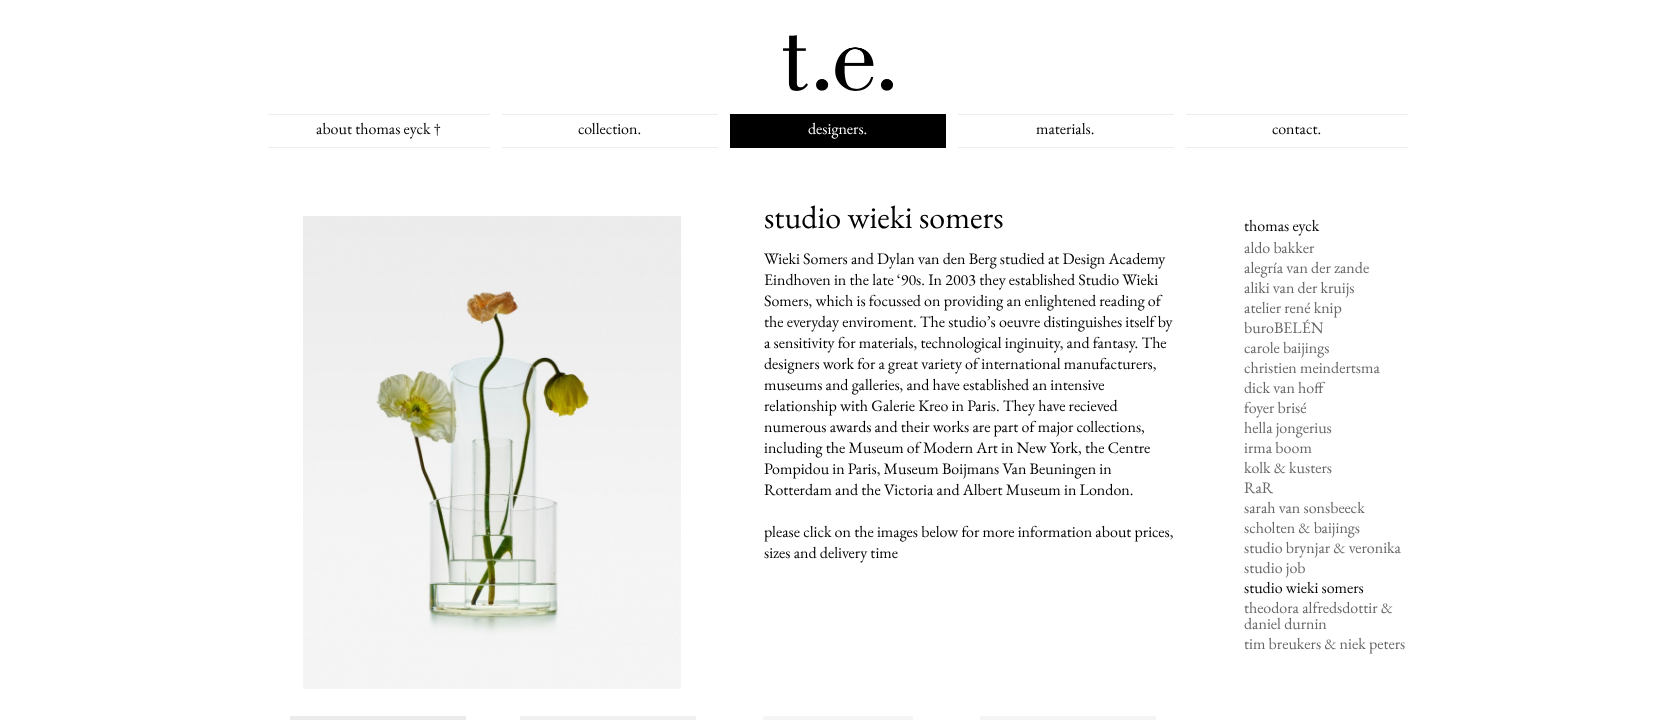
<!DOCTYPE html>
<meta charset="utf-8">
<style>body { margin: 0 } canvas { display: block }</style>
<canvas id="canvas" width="1675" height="720"></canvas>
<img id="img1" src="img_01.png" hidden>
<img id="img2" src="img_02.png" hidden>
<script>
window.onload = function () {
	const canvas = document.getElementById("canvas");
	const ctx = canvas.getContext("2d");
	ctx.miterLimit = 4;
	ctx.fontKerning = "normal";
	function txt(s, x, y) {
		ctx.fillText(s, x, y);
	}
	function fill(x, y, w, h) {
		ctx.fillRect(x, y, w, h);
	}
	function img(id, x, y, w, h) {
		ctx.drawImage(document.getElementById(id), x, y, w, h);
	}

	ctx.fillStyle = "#FFFFFF";
	fill(0, 0, 1675, 720);
	img("img1", 783, 35, 110, 56);
	ctx.fillStyle = "#EEEEEE";
	fill(268, 114, 222, 1);
	fill(268, 147, 222, 1);
	fill(502, 114, 216, 1);
	fill(502, 147, 216, 1);
	ctx.fillStyle = "#000000";
	fill(730, 114, 216, 34);
	ctx.fillStyle = "#EEEEEE";
	fill(958, 114, 216, 1);
	fill(958, 147, 216, 1);
	fill(1186, 114, 222, 1);
	fill(1186, 147, 222, 1);
	img("img2", 303, 216, 378, 473);
	ctx.fillStyle = "#EBEBEB";
	fill(290, 716, 176, 4);
	ctx.fillStyle = "#F0F0F0";
	fill(520, 716, 176, 4);
	ctx.fillStyle = "#F5F5F5";
	fill(763, 716, 150, 4);
	fill(980, 716, 176, 4);
	ctx.font = "16px EB Garamond";
	ctx.fillStyle = "#000000";
	txt("about thomas eyck †", 316, 134);
	txt("collection.", 578, 134);
	ctx.fillStyle = "#FFFFFF";
	txt("designers.", 808, 134);
	ctx.fillStyle = "#000000";
	txt("materials.", 1036, 134);
	txt("contact.", 1272, 134);
	ctx.font = "32px EB Garamond";
	txt("studio wieki somers", 764, 228);
	ctx.font = "16px EB Garamond";
	txt("Wieki Somers and Dylan van den Berg studied at Design Academy", 764, 264);
	txt("Eindhoven in the late ‘90s. In 2003 they established Studio Wieki", 764, 285);
	txt("Somers, which is focussed on providing an enlightened reading of", 764, 306);
	txt("the everyday enviroment. The studio’s oeuvre distinguishes itself by", 764, 327);
	txt("a sensitivity for materials, technological inginuity, and fantasy. The", 764, 348);
	txt("designers work for a great variety of international manufacturers,", 764, 369);
	txt("museums and galleries, and have established an intensive", 764, 390);
	txt("relationship with Galerie Kreo in Paris. They have recieved", 764, 411);
	txt("numerous awards and their works are part of major collections,", 764, 432);
	txt("including the Museum of Modern Art in New York, the Centre", 764, 453);
	txt("Pompidou in Paris, Museum Boijmans Van Beuningen in", 764, 474);
	txt("Rotterdam and the Victoria and Albert Museum in London.", 764, 495);
	txt("please click on the images below for more information about prices,", 764, 537);
	txt("sizes and delivery time", 764, 558);
	txt("thomas eyck", 1244, 231);
	ctx.fillStyle = "#666666";
	txt("aldo bakker", 1244, 253);
	txt("alegría van der zande", 1244, 273);
	txt("aliki van der kruijs", 1244, 293);
	txt("atelier rené knip", 1244, 313);
	txt("buroBELÉN", 1244, 333);
	txt("carole baijings", 1244, 353);
	txt("christien meindertsma", 1244, 373);
	txt("dick van hoff", 1244, 393);
	txt("foyer brisé", 1244, 413);
	txt("hella jongerius", 1244, 433);
	txt("irma boom", 1244, 453);
	txt("kolk & kusters", 1244, 473);
	txt("RaR", 1244, 493);
	txt("sarah van sonsbeeck", 1244, 513);
	txt("scholten & baijings", 1244, 533);
	txt("studio brynjar & veronika", 1244, 553);
	txt("studio job", 1244, 573);
	ctx.fillStyle = "#000000";
	txt("studio wieki somers", 1244, 593);
	ctx.fillStyle = "#666666";
	txt("theodora alfredsdottir &", 1244, 613);
	txt("daniel durnin", 1244, 629);
	txt("tim breukers & niek peters", 1244, 649);
};
</script>
